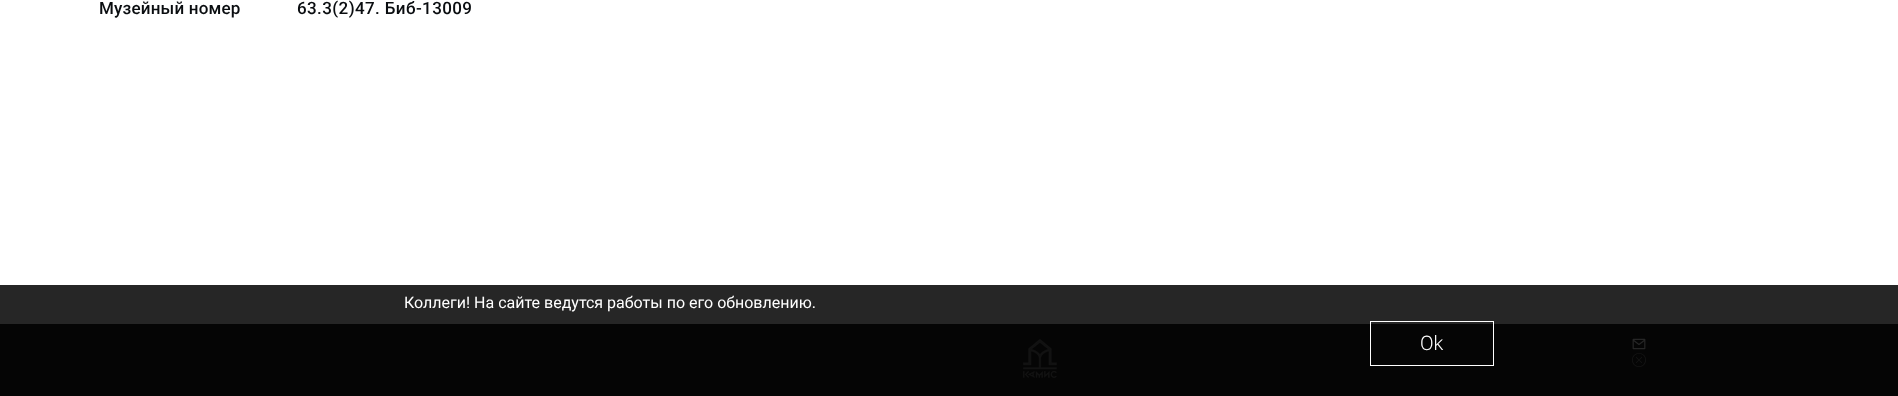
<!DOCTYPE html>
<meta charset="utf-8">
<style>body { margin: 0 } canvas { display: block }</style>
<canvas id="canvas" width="1898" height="396"></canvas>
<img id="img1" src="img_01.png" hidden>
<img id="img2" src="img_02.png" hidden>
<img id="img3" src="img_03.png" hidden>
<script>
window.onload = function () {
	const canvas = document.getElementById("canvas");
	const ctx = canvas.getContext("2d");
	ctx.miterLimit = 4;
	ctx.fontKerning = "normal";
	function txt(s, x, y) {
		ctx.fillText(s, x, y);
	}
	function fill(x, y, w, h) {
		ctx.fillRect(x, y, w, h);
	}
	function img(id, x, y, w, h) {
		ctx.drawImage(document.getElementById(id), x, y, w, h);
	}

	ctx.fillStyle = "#FFFFFF";
	fill(0, 0, 1898, 396);
	ctx.fillStyle = "#262626";
	fill(0, 285, 1898, 39);
	ctx.fillStyle = "#050505";
	fill(0, 324, 1898, 72);
	ctx.strokeStyle = "#FFFFFF";
	ctx.strokeRect(1370.5, 321.5, 123, 44);
	img("img1", 1023, 339, 34, 39);
	img("img2", 1632, 338, 14, 12);
	img("img3", 1632, 353, 14, 14);
	ctx.letterSpacing = "0.2px";
	ctx.font = "500 17px Roboto";
	ctx.fillStyle = "#0A0D10";
	txt("Музейный номер", 99, 14);
	ctx.letterSpacing = "0.4px";
	txt("63.3(2)47. Биб-13009", 297, 14);
	ctx.letterSpacing = "0px";
	ctx.font = "16px Roboto";
	ctx.fillStyle = "#FFFFFF";
	txt("Коллеги! На сайте ведутся работы по его обновлению.", 404, 308);
	ctx.font = "300 20px Roboto";
	txt("Ok", 1420, 350);
};
</script>
